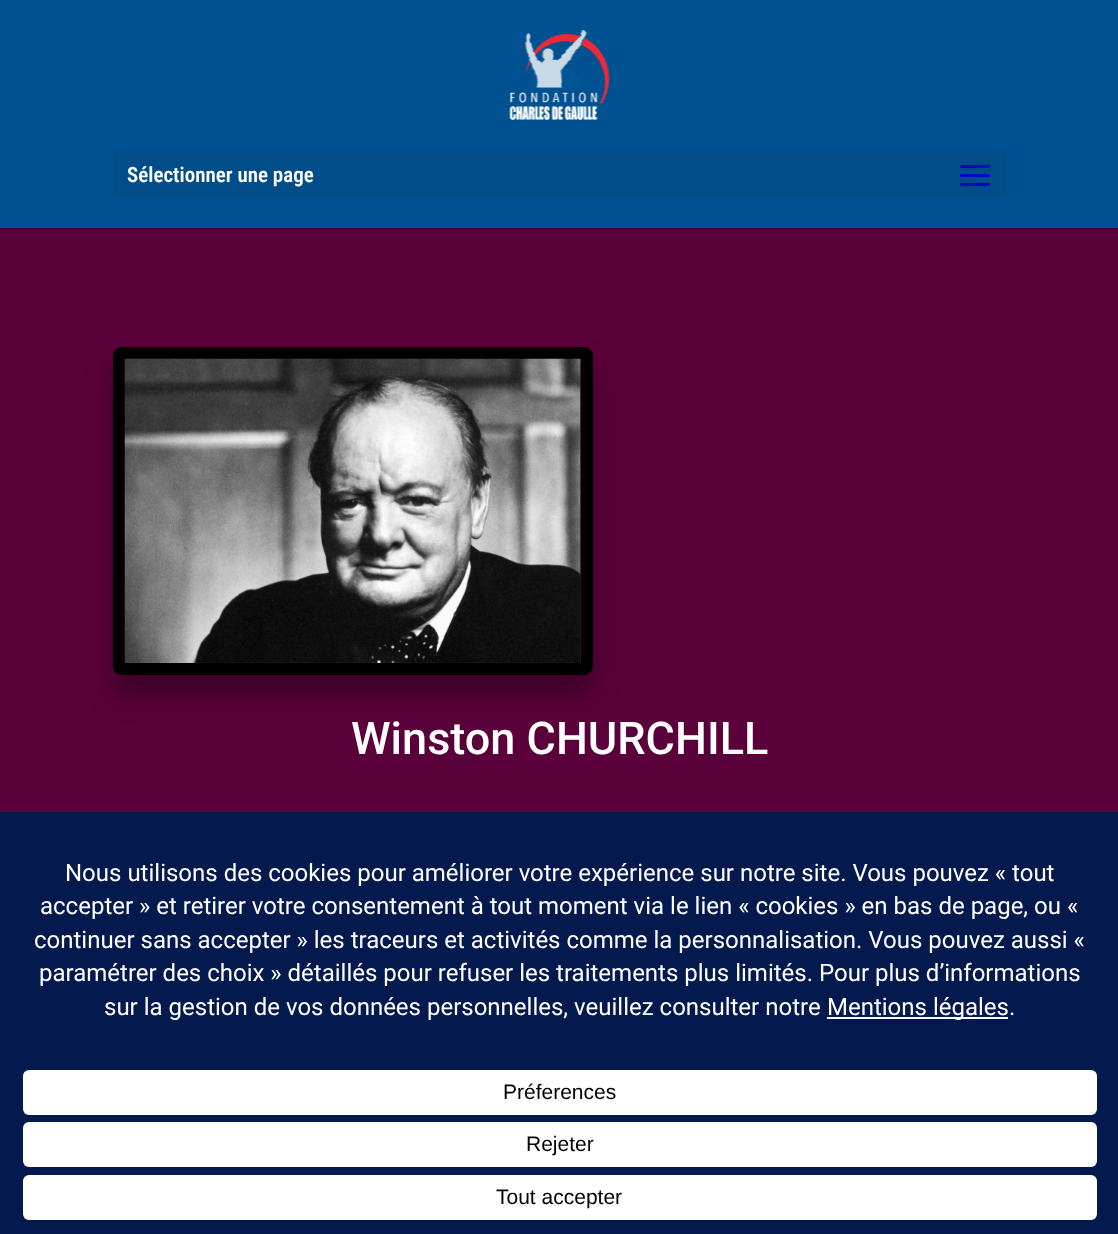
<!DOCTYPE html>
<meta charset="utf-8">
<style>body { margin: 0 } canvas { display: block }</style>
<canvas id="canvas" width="1118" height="1234"></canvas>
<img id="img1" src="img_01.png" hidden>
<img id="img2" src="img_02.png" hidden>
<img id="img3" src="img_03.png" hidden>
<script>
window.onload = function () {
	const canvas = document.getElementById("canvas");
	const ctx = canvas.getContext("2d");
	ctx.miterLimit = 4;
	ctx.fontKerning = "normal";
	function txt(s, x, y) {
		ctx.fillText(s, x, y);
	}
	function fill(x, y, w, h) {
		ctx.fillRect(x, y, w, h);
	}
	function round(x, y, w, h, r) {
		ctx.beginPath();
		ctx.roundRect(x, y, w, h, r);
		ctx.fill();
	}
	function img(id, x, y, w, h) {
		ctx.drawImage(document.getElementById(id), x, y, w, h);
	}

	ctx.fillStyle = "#5A003A";
	fill(0, 0, 1118, 1234);
	ctx.fillStyle = "#510034";
	fill(0, 228, 1118, 2);
	ctx.fillStyle = "#005191";
	fill(0, 0, 1118, 228);
	img("img1", 509, 30, 101, 90);
	ctx.fillStyle = "#004D8A";
	round(113, 150, 894, 48, 8);
	img("img2", 960, 165, 30, 21);
	ctx.fillStyle = "rgba(0, 0, 0, 0.3)";
	ctx.filter = "blur(13.5px)";
	ctx.beginPath();
	ctx.roundRect(113, 366, 480, 329, 9);
	ctx.fill();
	ctx.filter = "none";
	ctx.beginPath();
	ctx.roundRect(119, 353, 468, 316, 3);
	ctx.strokeStyle = "#000000";
	ctx.lineWidth = 12;
	ctx.stroke();
	img("img3", 124, 358, 457, 305);
	ctx.fillStyle = "#04194E";
	fill(0, 812, 1118, 422);
	ctx.fillStyle = "#FFFFFF";
	fill(827, 1017, 181, 2);
	round(23, 1070, 1074, 45, 6);
	round(23, 1122, 1074, 45, 6);
	round(23, 1175, 1074, 45, 6);
	ctx.font = "600 21px Roboto Condensed";
	txt("Sélectionner une page", 127, 182);
	ctx.font = "500 45px Roboto";
	txt("Winston CHURCHILL", 351, 754);
	ctx.font = "24px Roboto";
	txt("Nous utilisons des cookies pour améliorer votre expérience sur notre site. Vous pouvez « tout", 65, 881);
	txt("accepter » et retirer votre consentement à tout moment via le lien « cookies » en bas de page, ou «", 40, 914);
	txt("continuer sans accepter » les traceurs et activités comme la personnalisation. Vous pouvez aussi «", 34, 948);
	txt("paramétrer des choix » détaillés pour refuser les traitements plus limités. Pour plus d’informations", 39, 981);
	txt("sur la gestion de vos données personnelles, veuillez consulter notre", 104, 1015);
	txt("Mentions légales.", 827, 1015);
	ctx.font = "21px Liberation Sans";
	ctx.fillStyle = "#000000";
	txt("Préferences", 503, 1099);
	txt("Rejeter", 526, 1151);
	txt("Tout accepter", 496, 1204);
};
</script>
